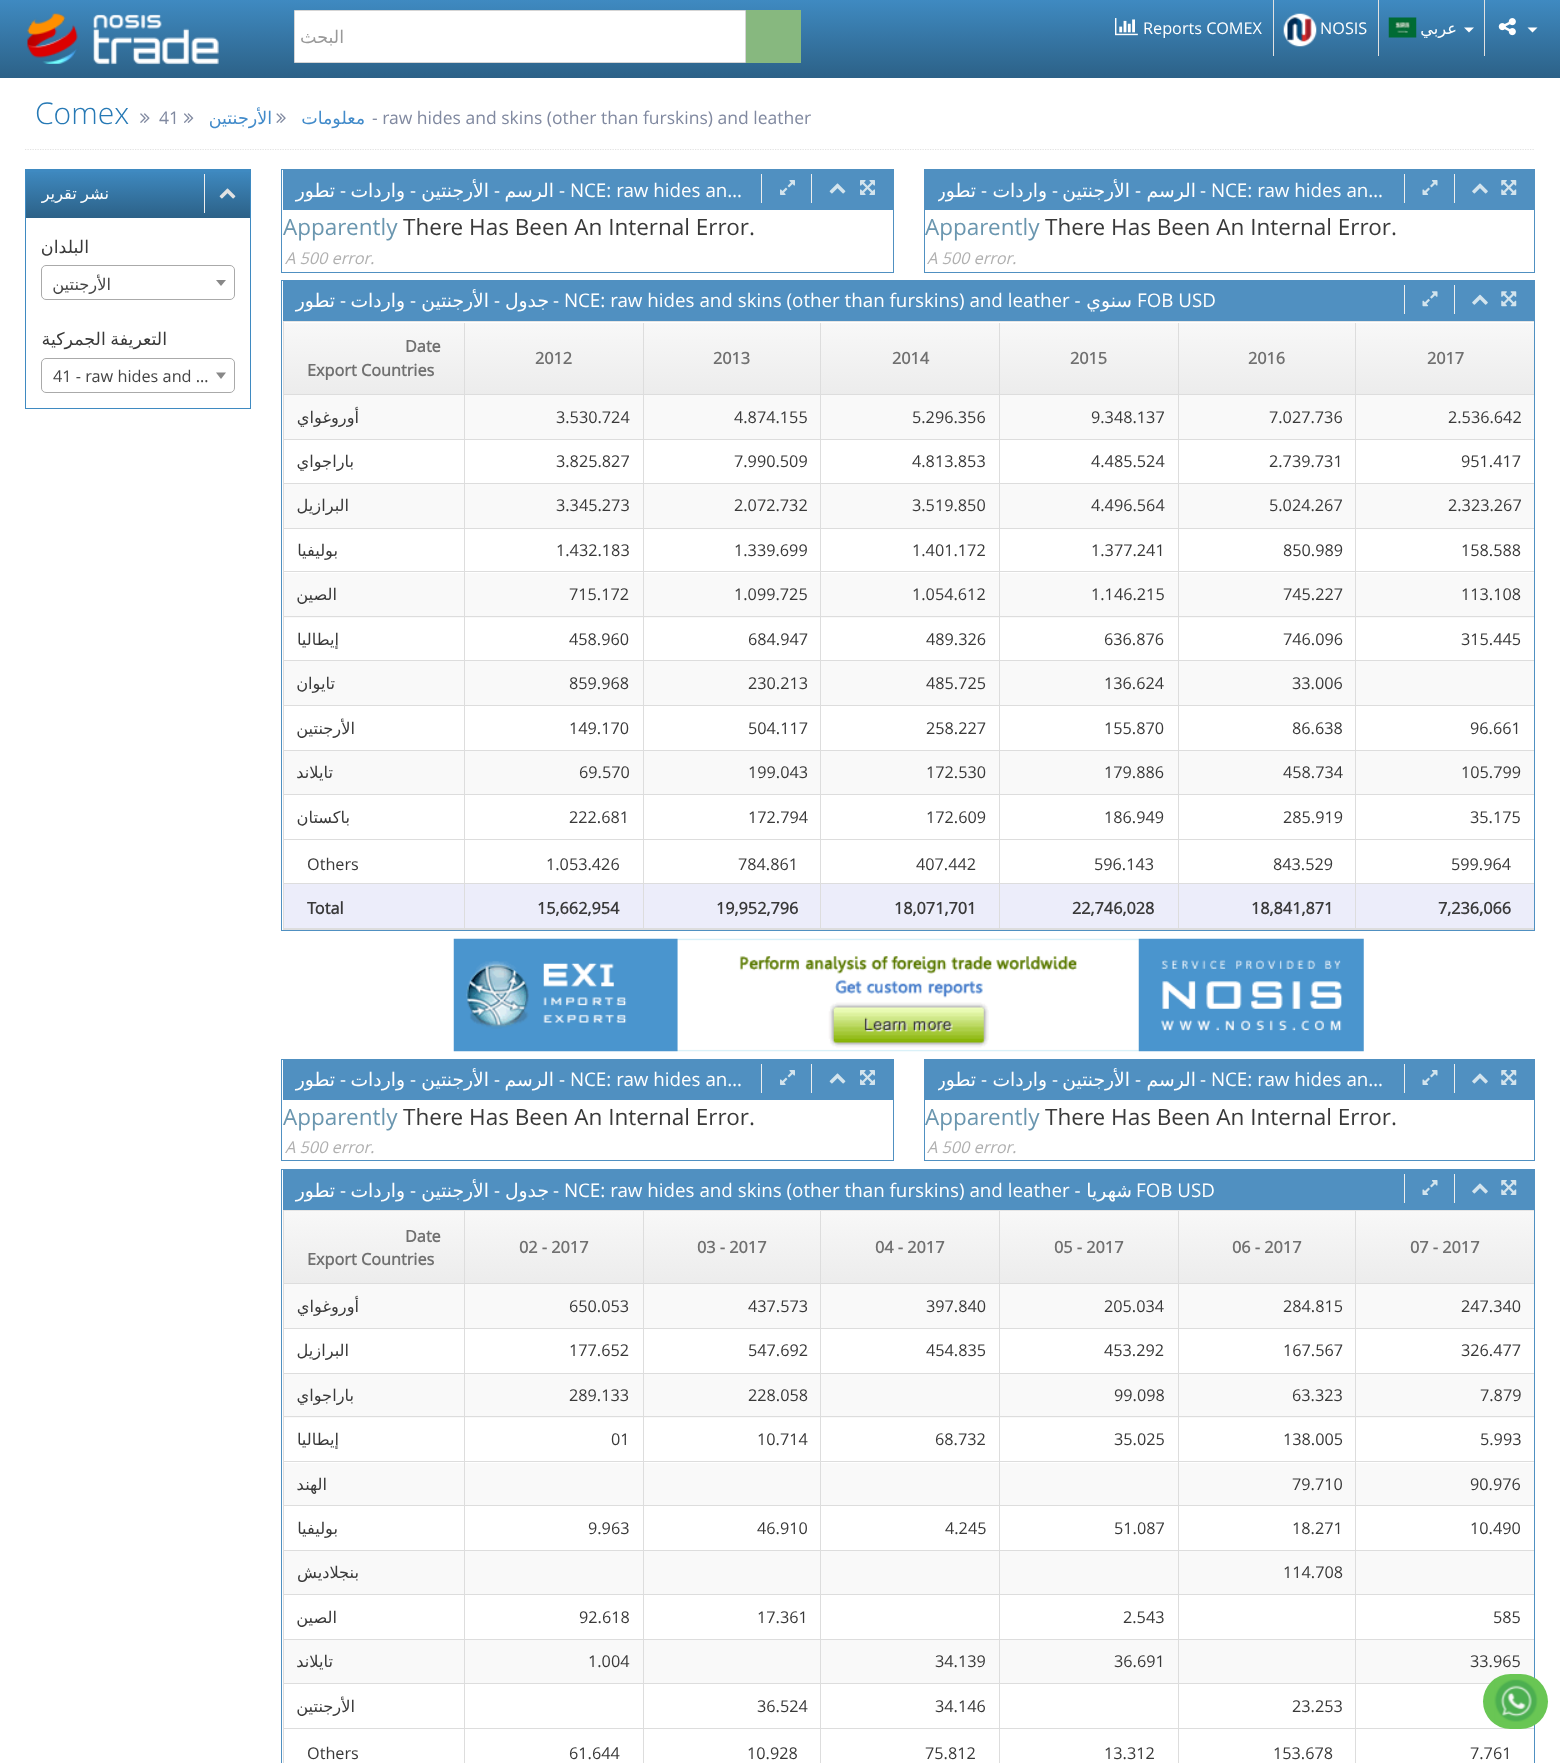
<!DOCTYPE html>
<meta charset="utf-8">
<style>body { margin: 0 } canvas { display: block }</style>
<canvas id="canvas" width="1560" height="1763"></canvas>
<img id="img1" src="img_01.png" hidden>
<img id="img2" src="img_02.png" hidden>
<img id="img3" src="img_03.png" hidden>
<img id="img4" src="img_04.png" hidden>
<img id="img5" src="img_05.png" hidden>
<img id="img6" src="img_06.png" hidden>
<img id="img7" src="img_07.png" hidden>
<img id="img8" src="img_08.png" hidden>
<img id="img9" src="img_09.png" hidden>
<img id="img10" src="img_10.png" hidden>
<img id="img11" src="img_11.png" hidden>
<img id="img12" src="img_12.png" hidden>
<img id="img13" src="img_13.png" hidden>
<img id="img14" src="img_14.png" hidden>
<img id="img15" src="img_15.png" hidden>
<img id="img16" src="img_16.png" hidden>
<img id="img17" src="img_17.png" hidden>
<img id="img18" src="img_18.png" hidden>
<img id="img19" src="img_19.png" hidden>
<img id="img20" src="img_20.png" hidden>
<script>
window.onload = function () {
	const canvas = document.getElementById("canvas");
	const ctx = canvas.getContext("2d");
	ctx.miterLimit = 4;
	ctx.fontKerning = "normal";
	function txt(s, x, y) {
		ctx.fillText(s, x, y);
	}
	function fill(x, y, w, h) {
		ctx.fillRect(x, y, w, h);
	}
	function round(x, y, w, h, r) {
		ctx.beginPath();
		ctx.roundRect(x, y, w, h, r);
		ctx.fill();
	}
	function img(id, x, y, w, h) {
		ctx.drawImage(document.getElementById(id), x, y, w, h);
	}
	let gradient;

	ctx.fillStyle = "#FFFFFF";
	fill(0, 0, 1560, 1763);
	gradient = ctx.createLinearGradient(780, 0, 780, 78);
	gradient.addColorStop(0, "#3F8AC1");
	gradient.addColorStop(1, "#2C6187");
	ctx.fillStyle = gradient;
	fill(0, 0, 1560, 78);
	img("img1", 27, 13, 192, 52);
	ctx.fillStyle = "#FFFFFF";
	ctx.beginPath();
	ctx.rect(294.5, 10.5, 451, 52);
	ctx.fill();
	ctx.strokeStyle = "#D5D5D5";
	ctx.stroke();
	ctx.fillStyle = "#87B87F";
	fill(746, 10, 55, 53);
	img("img2", 1115, 18, 23, 18);
	ctx.fillStyle = "#E1E1E1";
	fill(1273, 0, 1, 56);
	img("img3", 1283, 13, 34, 34);
	fill(1378, 0, 1, 56);
	img("img4", 1388, 17, 29, 21);
	ctx.fillStyle = "#FFFFFF";
	ctx.beginPath();
	ctx.moveTo(1464, 27.5);
	ctx.lineTo(1474, 27.5);
	ctx.lineTo(1469, 32.5);
	ctx.closePath();
	ctx.fill();
	ctx.fillStyle = "#E1E1E1";
	fill(1484, 0, 1, 56);
	img("img5", 1498, 18, 18, 18);
	ctx.fillStyle = "#FFFFFF";
	ctx.beginPath();
	ctx.moveTo(1527.5, 27.5);
	ctx.lineTo(1537.5, 27.5);
	ctx.lineTo(1532.5, 32.5);
	ctx.closePath();
	ctx.fill();
	ctx.beginPath();
	ctx.moveTo(25, 149.5);
	ctx.lineTo(1535, 149.5);
	ctx.strokeStyle = "#E2E2E2";
	ctx.lineWidth = 1.2;
	ctx.setLineDash([1.25, 1.25]);
	ctx.stroke();
	img("img6", 276, 113, 10, 10);
	img("img7", 184, 113, 10, 10);
	img("img8", 140, 113, 10, 10);
	ctx.fillStyle = "#3F8AC1";
	fill(25, 169, 226, 240);
	gradient = ctx.createLinearGradient(138, 170, 138, 218);
	gradient.addColorStop(0, "#3F8AC1");
	gradient.addColorStop(1, "#2C6187");
	ctx.fillStyle = gradient;
	fill(26, 172, 224, 46);
	ctx.fillStyle = "#EEEEEE";
	fill(204, 174, 1, 39);
	img("img9", 219, 188, 17, 11);
	ctx.fillStyle = "#FFFFFF";
	fill(26, 218, 224, 190);
	ctx.beginPath();
	ctx.roundRect(41.5, 265.5, 193, 34, 4.5);
	ctx.strokeStyle = "#AAAAAA";
	ctx.lineWidth = 1;
	ctx.setLineDash([]);
	ctx.stroke();
	ctx.fillStyle = "#888888";
	ctx.beginPath();
	ctx.moveTo(216, 280);
	ctx.lineTo(226, 280);
	ctx.lineTo(221, 286);
	ctx.closePath();
	ctx.fill();
	ctx.beginPath();
	ctx.roundRect(41.5, 358.5, 193, 34, 4.5);
	ctx.stroke();
	ctx.beginPath();
	ctx.moveTo(216, 372.5);
	ctx.lineTo(226, 372.5);
	ctx.lineTo(221, 379);
	ctx.closePath();
	ctx.fill();
	ctx.strokeStyle = "#5090C1";
	ctx.strokeRect(281.5, 169.5, 612, 103);
	ctx.fillStyle = "#5090C1";
	fill(283, 170, 610, 40);
	ctx.fillStyle = "#EEEEEE";
	fill(761, 174, 1, 29);
	img("img10", 780, 180, 15, 15);
	fill(811, 174, 1, 29);
	img("img11", 829, 183, 17, 11);
	img("img12", 860, 180, 15, 15);
	ctx.strokeRect(924.5, 169.5, 610, 103);
	ctx.fillStyle = "#5090C1";
	fill(925, 170, 609, 40);
	ctx.fillStyle = "#EEEEEE";
	fill(1404, 174, 1, 29);
	img("img13", 1422, 180, 16, 15);
	fill(1454, 174, 1, 29);
	img("img14", 1472, 183, 16, 11);
	img("img15", 1501, 180, 16, 15);
	ctx.strokeRect(281.5, 280.5, 1253, 650);
	ctx.fillStyle = "#5090C1";
	fill(283, 281, 1251, 40);
	ctx.fillStyle = "#EEEEEE";
	fill(1404, 285, 1, 29);
	img("img16", 1422, 291, 16, 16);
	fill(1454, 285, 1, 29);
	img("img17", 1472, 294, 16, 11);
	img("img18", 1501, 291, 16, 16);
	ctx.fillStyle = "#E5E5E5";
	fill(283, 321, 1251, 1);
	ctx.fillStyle = "#DDDDDD";
	fill(283, 929, 1251, 1);
	fill(283, 321, 1, 609);
	gradient = ctx.createLinearGradient(909, 322, 909, 395);
	gradient.addColorStop(0, "#F8F8F8");
	gradient.addColorStop(1, "#ECECEC");
	ctx.fillStyle = gradient;
	fill(284, 323, 1250, 71);
	ctx.fillStyle = "#DDDDDD";
	fill(464, 323, 1, 561);
	fill(284, 394, 181, 1);
	fill(643, 323, 1, 561);
	fill(465, 394, 179, 1);
	fill(820, 323, 1, 561);
	fill(644, 394, 177, 1);
	fill(999, 323, 1, 561);
	fill(821, 394, 179, 1);
	fill(1178, 323, 1, 561);
	fill(1000, 394, 179, 1);
	fill(1355, 323, 1, 561);
	fill(1179, 394, 355, 1);
	ctx.fillStyle = "#F9F9F9";
	fill(284, 395, 180, 44);
	ctx.fillStyle = "#DDDDDD";
	fill(284, 439, 1250, 1);
	ctx.fillStyle = "#F9F9F9";
	fill(465, 395, 178, 44);
	fill(644, 395, 176, 44);
	fill(821, 395, 178, 44);
	fill(1000, 395, 178, 44);
	fill(1179, 395, 176, 44);
	fill(1356, 395, 178, 44);
	ctx.fillStyle = "#DDDDDD";
	fill(284, 483, 1250, 1);
	ctx.fillStyle = "#F9F9F9";
	fill(284, 484, 180, 44);
	ctx.fillStyle = "#DDDDDD";
	fill(284, 528, 1250, 1);
	ctx.fillStyle = "#F9F9F9";
	fill(465, 484, 178, 44);
	fill(644, 484, 176, 44);
	fill(821, 484, 178, 44);
	fill(1000, 484, 178, 44);
	fill(1179, 484, 176, 44);
	fill(1356, 484, 178, 44);
	ctx.fillStyle = "#DDDDDD";
	fill(284, 571, 1250, 1);
	ctx.fillStyle = "#F9F9F9";
	fill(284, 573, 180, 45);
	ctx.fillStyle = "#DDDDDD";
	fill(284, 616, 181, 1);
	ctx.fillStyle = "#F9F9F9";
	fill(465, 573, 178, 45);
	ctx.fillStyle = "#DDDDDD";
	fill(465, 616, 179, 1);
	ctx.fillStyle = "#F9F9F9";
	fill(644, 573, 176, 45);
	ctx.fillStyle = "#DDDDDD";
	fill(644, 616, 177, 1);
	ctx.fillStyle = "#F9F9F9";
	fill(821, 573, 178, 45);
	ctx.fillStyle = "#DDDDDD";
	fill(821, 616, 179, 1);
	ctx.fillStyle = "#F9F9F9";
	fill(1000, 573, 178, 45);
	ctx.fillStyle = "#DDDDDD";
	fill(1000, 616, 179, 1);
	ctx.fillStyle = "#F9F9F9";
	fill(1179, 573, 176, 45);
	ctx.fillStyle = "#DDDDDD";
	fill(1179, 616, 177, 1);
	ctx.fillStyle = "#F9F9F9";
	fill(1356, 573, 178, 45);
	ctx.fillStyle = "#DDDDDD";
	fill(1356, 616, 178, 1);
	fill(284, 660, 1250, 1);
	ctx.fillStyle = "#F9F9F9";
	fill(284, 661, 180, 44);
	ctx.fillStyle = "#DDDDDD";
	fill(284, 705, 1250, 1);
	ctx.fillStyle = "#F9F9F9";
	fill(465, 661, 178, 44);
	fill(644, 661, 176, 44);
	fill(821, 661, 178, 44);
	fill(1000, 661, 178, 44);
	fill(1179, 661, 176, 44);
	fill(1356, 661, 178, 44);
	ctx.fillStyle = "#DDDDDD";
	fill(284, 750, 1250, 1);
	ctx.fillStyle = "#F9F9F9";
	fill(284, 751, 180, 43);
	ctx.fillStyle = "#DDDDDD";
	fill(284, 794, 1250, 1);
	ctx.fillStyle = "#F9F9F9";
	fill(465, 751, 178, 43);
	fill(644, 751, 176, 43);
	fill(821, 751, 178, 43);
	fill(1000, 751, 178, 43);
	fill(1179, 751, 176, 43);
	fill(1356, 751, 178, 43);
	ctx.fillStyle = "#DDDDDD";
	fill(284, 839, 1250, 1);
	fill(284, 883, 1250, 1);
	ctx.fillStyle = "#ECEDFA";
	fill(284, 884, 1250, 44);
	ctx.fillStyle = "#DDDDDD";
	fill(464, 884, 1, 45);
	fill(284, 928, 181, 1);
	fill(643, 884, 1, 45);
	fill(465, 928, 179, 1);
	fill(820, 884, 1, 45);
	fill(644, 928, 177, 1);
	fill(999, 884, 1, 45);
	fill(821, 928, 179, 1);
	fill(1178, 884, 1, 45);
	fill(1000, 928, 179, 1);
	fill(1355, 884, 1, 45);
	fill(1179, 928, 355, 1);
	img("img19", 453, 938, 911, 114);
	ctx.strokeRect(281.5, 1059.5, 612, 101);
	ctx.fillStyle = "#5090C1";
	fill(283, 1060, 610, 40);
	ctx.fillStyle = "#EEEEEE";
	fill(761, 1064, 1, 29);
	img("img10", 780, 1070, 15, 15);
	fill(811, 1064, 1, 29);
	img("img11", 829, 1073, 17, 11);
	img("img12", 860, 1070, 15, 15);
	ctx.strokeRect(924.5, 1059.5, 610, 101);
	ctx.fillStyle = "#5090C1";
	fill(925, 1060, 609, 40);
	ctx.fillStyle = "#EEEEEE";
	fill(1404, 1064, 1, 29);
	img("img13", 1422, 1070, 16, 15);
	fill(1454, 1064, 1, 29);
	img("img14", 1472, 1073, 16, 11);
	img("img15", 1501, 1070, 16, 15);
	ctx.strokeRect(281.5, 1169.5, 1253, 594);
	ctx.fillStyle = "#5090C1";
	fill(283, 1170, 1251, 40);
	ctx.fillStyle = "#EEEEEE";
	fill(1404, 1174, 1, 29);
	img("img13", 1422, 1180, 16, 15);
	fill(1454, 1174, 1, 29);
	img("img14", 1472, 1183, 16, 11);
	img("img15", 1501, 1180, 16, 15);
	ctx.fillStyle = "#E5E5E5";
	fill(283, 1210, 1251, 1);
	ctx.fillStyle = "#DDDDDD";
	fill(283, 1210, 1, 553);
	gradient = ctx.createLinearGradient(909, 1211, 909, 1284);
	gradient.addColorStop(0, "#F8F8F8");
	gradient.addColorStop(1, "#ECECEC");
	ctx.fillStyle = gradient;
	fill(284, 1211, 1250, 72);
	ctx.fillStyle = "#DDDDDD";
	fill(464, 1211, 1, 552);
	fill(284, 1283, 181, 1);
	fill(643, 1211, 1, 552);
	fill(465, 1283, 179, 1);
	fill(820, 1211, 1, 552);
	fill(644, 1283, 177, 1);
	fill(999, 1211, 1, 552);
	fill(821, 1283, 179, 1);
	fill(1178, 1211, 1, 552);
	fill(1000, 1283, 179, 1);
	fill(1355, 1211, 1, 552);
	fill(1179, 1283, 355, 1);
	ctx.fillStyle = "#F9F9F9";
	fill(284, 1284, 180, 44);
	ctx.fillStyle = "#DDDDDD";
	fill(284, 1328, 1250, 1);
	ctx.fillStyle = "#F9F9F9";
	fill(465, 1284, 178, 44);
	fill(644, 1284, 176, 44);
	fill(821, 1284, 178, 44);
	fill(1000, 1284, 178, 44);
	fill(1179, 1284, 176, 44);
	fill(1356, 1284, 178, 44);
	ctx.fillStyle = "#DDDDDD";
	fill(284, 1373, 1250, 1);
	ctx.fillStyle = "#F9F9F9";
	fill(284, 1374, 180, 44);
	ctx.fillStyle = "#DDDDDD";
	fill(284, 1416, 181, 1);
	ctx.fillStyle = "#F9F9F9";
	fill(465, 1374, 178, 44);
	ctx.fillStyle = "#DDDDDD";
	fill(465, 1416, 179, 1);
	ctx.fillStyle = "#F9F9F9";
	fill(644, 1374, 176, 44);
	ctx.fillStyle = "#DDDDDD";
	fill(644, 1416, 177, 1);
	ctx.fillStyle = "#F9F9F9";
	fill(821, 1374, 178, 44);
	ctx.fillStyle = "#DDDDDD";
	fill(821, 1416, 179, 1);
	ctx.fillStyle = "#F9F9F9";
	fill(1000, 1374, 178, 44);
	ctx.fillStyle = "#DDDDDD";
	fill(1000, 1416, 179, 1);
	ctx.fillStyle = "#F9F9F9";
	fill(1179, 1374, 176, 44);
	ctx.fillStyle = "#DDDDDD";
	fill(1179, 1416, 177, 1);
	ctx.fillStyle = "#F9F9F9";
	fill(1356, 1374, 178, 44);
	ctx.fillStyle = "#DDDDDD";
	fill(1356, 1416, 178, 1);
	fill(284, 1461, 1250, 1);
	ctx.fillStyle = "#F9F9F9";
	fill(284, 1463, 180, 42);
	ctx.fillStyle = "#DDDDDD";
	fill(284, 1505, 1250, 1);
	ctx.fillStyle = "#F9F9F9";
	fill(465, 1463, 178, 42);
	fill(644, 1463, 176, 42);
	fill(821, 1463, 178, 42);
	fill(1000, 1463, 178, 42);
	fill(1179, 1463, 176, 42);
	fill(1356, 1463, 178, 42);
	ctx.fillStyle = "#DDDDDD";
	fill(284, 1550, 1250, 1);
	ctx.fillStyle = "#F9F9F9";
	fill(284, 1551, 180, 43);
	ctx.fillStyle = "#DDDDDD";
	fill(284, 1594, 1250, 1);
	ctx.fillStyle = "#F9F9F9";
	fill(465, 1551, 178, 43);
	fill(644, 1551, 176, 43);
	fill(821, 1551, 178, 43);
	fill(1000, 1551, 178, 43);
	fill(1179, 1551, 176, 43);
	fill(1356, 1551, 178, 43);
	ctx.fillStyle = "#DDDDDD";
	fill(284, 1639, 1250, 1);
	ctx.fillStyle = "#F9F9F9";
	fill(284, 1640, 180, 43);
	ctx.fillStyle = "#DDDDDD";
	fill(284, 1683, 1207, 1);
	ctx.fillStyle = "#F9F9F9";
	fill(465, 1640, 178, 43);
	fill(644, 1640, 176, 43);
	fill(821, 1640, 178, 43);
	fill(1000, 1640, 178, 43);
	fill(1179, 1640, 176, 43);
	fill(1356, 1640, 178, 43);
	ctx.fillStyle = "#DDDDDD";
	fill(284, 1728, 1250, 1);
	ctx.fillStyle = "#69C654";
	round(1483, 1674, 65, 55, 27.5);
	img("img20", 1494, 1679, 44, 43);
	ctx.direction = "rtl";
	ctx.font = "17.5px DejaVu Sans";
	ctx.fillStyle = "#999999";
	txt("البحث", 344, 43);
	ctx.direction = "ltr";
	ctx.font = "16.25px Open Sans";
	ctx.fillStyle = "#FFFFFF";
	txt("Reports COMEX", 1143, 34);
	txt("NOSIS", 1320, 34);
	ctx.direction = "rtl";
	ctx.font = "16.25px DejaVu Sans";
	txt("عربي", 1457, 34);
	ctx.direction = "ltr";
	ctx.font = "300 30px Open Sans";
	ctx.fillStyle = "#2679B5";
	txt("Comex", 35, 124);
	ctx.direction = "rtl";
	ctx.font = "17.5px DejaVu Sans";
	ctx.fillStyle = "#428BCA";
	txt("الأرجنتين", 272, 124);
	ctx.direction = "ltr";
	ctx.font = "17.5px Open Sans";
	ctx.fillStyle = "#8089A0";
	txt("41", 159, 124);
	txt("- raw hides and skins (other than furskins) and leather", 372, 124);
	ctx.direction = "rtl";
	ctx.font = "17.5px DejaVu Sans";
	ctx.fillStyle = "#428BCA";
	txt("معلومات", 365, 124);
	ctx.wordSpacing = "-1px";
	ctx.font = "16.25px DejaVu Sans";
	ctx.fillStyle = "#FFFFFF";
	txt("نشر تقرير", 109, 199);
	ctx.wordSpacing = "0px";
	ctx.font = "17.5px DejaVu Sans";
	ctx.fillStyle = "#393939";
	txt("البلدان", 89, 253);
	ctx.font = "16.25px DejaVu Sans";
	ctx.fillStyle = "#444444";
	txt("الأرجنتين", 111, 290);
	ctx.wordSpacing = "-1px";
	ctx.font = "17.5px DejaVu Sans";
	ctx.fillStyle = "#393939";
	txt("التعريفة الجمركية", 167, 345);
	ctx.wordSpacing = "0px";
	ctx.direction = "ltr";
	ctx.font = "16.25px Open Sans";
	ctx.fillStyle = "#444444";
	txt("41 - raw hides and …", 53, 382);
	ctx.direction = "rtl";
	ctx.font = "18.75px DejaVu Sans";
	ctx.fillStyle = "#FFFFFF";
	txt("تطور", 335, 197);
	ctx.font = "18.75px Open Sans";
	txt("-", 346, 197);
	ctx.font = "18.75px DejaVu Sans";
	txt("واردات", 405, 197);
	ctx.font = "18.75px Open Sans";
	txt("-", 416, 197);
	ctx.font = "18.75px DejaVu Sans";
	txt("الأرجنتين", 489, 197);
	ctx.font = "18.75px Open Sans";
	txt("-", 500, 197);
	ctx.font = "18.75px DejaVu Sans";
	txt("الرسم", 554, 197);
	ctx.direction = "ltr";
	ctx.font = "18.75px Open Sans";
	txt("- NCE: raw hides an…", 559, 197);
	ctx.font = "22.5px Open Sans";
	ctx.fillStyle = "#6A96AF";
	txt("Apparently", 283, 235);
	ctx.fillStyle = "#393939";
	txt("There Has Been An Internal Error.", 403, 235);
	ctx.font = "italic 16.25px Open Sans";
	ctx.fillStyle = "#B0B0B0";
	txt("A 500 error.", 285, 264);
	ctx.save();
	ctx.beginPath();
	ctx.rect(938, 170, 456, 38);
	ctx.clip();
	ctx.direction = "rtl";
	ctx.font = "18.75px DejaVu Sans";
	ctx.fillStyle = "#FFFFFF";
	txt("تطور", 976, 197);
	ctx.restore();
	ctx.direction = "rtl";
	ctx.font = "18.75px Open Sans";
	ctx.fillStyle = "#FFFFFF";
	txt("-", 987, 197);
	ctx.font = "18.75px DejaVu Sans";
	txt("واردات", 1047, 197);
	ctx.font = "18.75px Open Sans";
	txt("-", 1058, 197);
	ctx.font = "18.75px DejaVu Sans";
	txt("الأرجنتين", 1130, 197);
	ctx.font = "18.75px Open Sans";
	txt("-", 1141, 197);
	ctx.font = "18.75px DejaVu Sans";
	txt("الرسم", 1196, 197);
	ctx.direction = "ltr";
	ctx.font = "18.75px Open Sans";
	txt("- NCE: raw hides an…", 1200, 197);
	ctx.font = "22.5px Open Sans";
	ctx.fillStyle = "#6A96AF";
	txt("Apparently", 925, 235);
	ctx.fillStyle = "#393939";
	txt("There Has Been An Internal Error.", 1045, 235);
	ctx.font = "italic 16.25px Open Sans";
	ctx.fillStyle = "#B0B0B0";
	txt("A 500 error.", 927, 264);
	ctx.direction = "rtl";
	ctx.font = "18.75px DejaVu Sans";
	ctx.fillStyle = "#FFFFFF";
	txt("تطور", 335, 307);
	ctx.font = "18.75px Open Sans";
	txt("-", 346, 307);
	ctx.font = "18.75px DejaVu Sans";
	txt("واردات", 405, 307);
	ctx.font = "18.75px Open Sans";
	txt("-", 416, 307);
	ctx.font = "18.75px DejaVu Sans";
	txt("الأرجنتين", 489, 307);
	ctx.font = "18.75px Open Sans";
	txt("-", 500, 307);
	ctx.font = "18.75px DejaVu Sans";
	txt("جدول", 549, 307);
	ctx.direction = "ltr";
	ctx.font = "18.75px Open Sans";
	txt("- NCE: raw hides and skins (other than furskins) and leather -", 553, 307);
	ctx.direction = "rtl";
	ctx.font = "18.75px DejaVu Sans";
	txt("سنوي", 1132, 307);
	ctx.direction = "ltr";
	ctx.font = "18.75px Open Sans";
	txt("FOB USD", 1137, 307);
	ctx.font = "bold 16.25px Open Sans";
	ctx.fillStyle = "#707070";
	txt("Date", 405, 352);
	txt("Export Countries", 307, 376);
	txt("2012", 535, 364);
	txt("2013", 713, 364);
	txt("2014", 892, 364);
	txt("2015", 1070, 364);
	txt("2016", 1248, 364);
	txt("2017", 1427, 364);
	ctx.direction = "rtl";
	ctx.font = "16.25px DejaVu Sans";
	ctx.fillStyle = "#393939";
	txt("أوروغواي", 359, 423);
	ctx.direction = "ltr";
	ctx.font = "16.25px Open Sans";
	txt("3.530.724", 556, 423);
	txt("4.874.155", 734, 423);
	txt("5.296.356", 912, 423);
	txt("9.348.137", 1091, 423);
	txt("7.027.736", 1269, 423);
	txt("2.536.642", 1448, 423);
	ctx.direction = "rtl";
	ctx.font = "16.25px DejaVu Sans";
	txt("باراجواي", 354, 467);
	ctx.direction = "ltr";
	ctx.font = "16.25px Open Sans";
	txt("3.825.827", 556, 467);
	txt("7.990.509", 734, 467);
	txt("4.813.853", 912, 467);
	txt("4.485.524", 1091, 467);
	txt("2.739.731", 1269, 467);
	txt("951.417", 1461, 467);
	ctx.direction = "rtl";
	ctx.font = "16.25px DejaVu Sans";
	txt("البرازيل", 349, 511);
	ctx.direction = "ltr";
	ctx.font = "16.25px Open Sans";
	txt("3.345.273", 556, 511);
	txt("2.072.732", 734, 511);
	txt("3.519.850", 912, 511);
	txt("4.496.564", 1091, 511);
	txt("5.024.267", 1269, 511);
	txt("2.323.267", 1448, 511);
	ctx.direction = "rtl";
	ctx.font = "16.25px DejaVu Sans";
	txt("بوليفيا", 338, 556);
	ctx.direction = "ltr";
	ctx.font = "16.25px Open Sans";
	txt("1.432.183", 556, 556);
	txt("1.339.699", 734, 556);
	txt("1.401.172", 912, 556);
	txt("1.377.241", 1091, 556);
	txt("850.989", 1283, 556);
	txt("158.588", 1461, 556);
	ctx.direction = "rtl";
	ctx.font = "16.25px DejaVu Sans";
	txt("الصين", 337, 600);
	ctx.direction = "ltr";
	ctx.font = "16.25px Open Sans";
	txt("715.172", 569, 600);
	txt("1.099.725", 734, 600);
	txt("1.054.612", 912, 600);
	txt("1.146.215", 1091, 600);
	txt("745.227", 1283, 600);
	txt("113.108", 1461, 600);
	ctx.direction = "rtl";
	ctx.font = "16.25px DejaVu Sans";
	txt("إيطاليا", 339, 645);
	ctx.direction = "ltr";
	ctx.font = "16.25px Open Sans";
	txt("458.960", 569, 645);
	txt("684.947", 748, 645);
	txt("489.326", 926, 645);
	txt("636.876", 1104, 645);
	txt("746.096", 1283, 645);
	txt("315.445", 1461, 645);
	ctx.direction = "rtl";
	ctx.font = "16.25px DejaVu Sans";
	txt("تايوان", 335, 689);
	ctx.direction = "ltr";
	ctx.font = "16.25px Open Sans";
	txt("859.968", 569, 689);
	txt("230.213", 748, 689);
	txt("485.725", 926, 689);
	txt("136.624", 1104, 689);
	txt("33.006", 1292, 689);
	ctx.direction = "rtl";
	ctx.font = "16.25px DejaVu Sans";
	txt("الأرجنتين", 355, 734);
	ctx.direction = "ltr";
	ctx.font = "16.25px Open Sans";
	txt("149.170", 569, 734);
	txt("504.117", 748, 734);
	txt("258.227", 926, 734);
	txt("155.870", 1104, 734);
	txt("86.638", 1292, 734);
	txt("96.661", 1470, 734);
	ctx.direction = "rtl";
	ctx.font = "16.25px DejaVu Sans";
	txt("تايلاند", 333, 778);
	ctx.direction = "ltr";
	ctx.font = "16.25px Open Sans";
	txt("69.570", 579, 778);
	txt("199.043", 748, 778);
	txt("172.530", 926, 778);
	txt("179.886", 1104, 778);
	txt("458.734", 1283, 778);
	txt("105.799", 1461, 778);
	ctx.direction = "rtl";
	ctx.font = "16.25px DejaVu Sans";
	txt("باكستان", 350, 823);
	ctx.direction = "ltr";
	ctx.font = "16.25px Open Sans";
	txt("222.681", 569, 823);
	txt("172.794", 748, 823);
	txt("172.609", 926, 823);
	txt("186.949", 1104, 823);
	txt("285.919", 1283, 823);
	txt("35.175", 1470, 823);
	txt("Others", 307, 870);
	txt("1.053.426", 546, 870);
	txt("784.861", 738, 870);
	txt("407.442", 916, 870);
	txt("596.143", 1094, 870);
	txt("843.529", 1273, 870);
	txt("599.964", 1451, 870);
	ctx.font = "bold 16.25px Open Sans";
	txt("Total", 307, 914);
	txt("15,662,954", 537, 914);
	txt("19,952,796", 716, 914);
	txt("18,071,701", 894, 914);
	txt("22,746,028", 1072, 914);
	txt("18,841,871", 1251, 914);
	txt("7,236,066", 1438, 914);
	ctx.direction = "rtl";
	ctx.font = "18.75px DejaVu Sans";
	ctx.fillStyle = "#FFFFFF";
	txt("تطور", 335, 1086);
	ctx.font = "18.75px Open Sans";
	txt("-", 346, 1086);
	ctx.font = "18.75px DejaVu Sans";
	txt("واردات", 405, 1086);
	ctx.font = "18.75px Open Sans";
	txt("-", 416, 1086);
	ctx.font = "18.75px DejaVu Sans";
	txt("الأرجنتين", 489, 1086);
	ctx.font = "18.75px Open Sans";
	txt("-", 500, 1086);
	ctx.font = "18.75px DejaVu Sans";
	txt("الرسم", 554, 1086);
	ctx.direction = "ltr";
	ctx.font = "18.75px Open Sans";
	txt("- NCE: raw hides an…", 559, 1086);
	ctx.font = "22.5px Open Sans";
	ctx.fillStyle = "#6A96AF";
	txt("Apparently", 283, 1125);
	ctx.fillStyle = "#393939";
	txt("There Has Been An Internal Error.", 403, 1125);
	ctx.font = "italic 16.25px Open Sans";
	ctx.fillStyle = "#B0B0B0";
	txt("A 500 error.", 285, 1153);
	ctx.save();
	ctx.beginPath();
	ctx.rect(938, 1060, 456, 38);
	ctx.clip();
	ctx.direction = "rtl";
	ctx.font = "18.75px DejaVu Sans";
	ctx.fillStyle = "#FFFFFF";
	txt("تطور", 976, 1086);
	ctx.restore();
	ctx.direction = "rtl";
	ctx.font = "18.75px Open Sans";
	ctx.fillStyle = "#FFFFFF";
	txt("-", 987, 1086);
	ctx.font = "18.75px DejaVu Sans";
	txt("واردات", 1047, 1086);
	ctx.font = "18.75px Open Sans";
	txt("-", 1058, 1086);
	ctx.font = "18.75px DejaVu Sans";
	txt("الأرجنتين", 1130, 1086);
	ctx.font = "18.75px Open Sans";
	txt("-", 1141, 1086);
	ctx.font = "18.75px DejaVu Sans";
	txt("الرسم", 1196, 1086);
	ctx.direction = "ltr";
	ctx.font = "18.75px Open Sans";
	txt("- NCE: raw hides an…", 1200, 1086);
	ctx.font = "22.5px Open Sans";
	ctx.fillStyle = "#6A96AF";
	txt("Apparently", 925, 1125);
	ctx.fillStyle = "#393939";
	txt("There Has Been An Internal Error.", 1045, 1125);
	ctx.font = "italic 16.25px Open Sans";
	ctx.fillStyle = "#B0B0B0";
	txt("A 500 error.", 927, 1153);
	ctx.direction = "rtl";
	ctx.font = "18.75px DejaVu Sans";
	ctx.fillStyle = "#FFFFFF";
	txt("تطور", 335, 1197);
	ctx.font = "18.75px Open Sans";
	txt("-", 346, 1197);
	ctx.font = "18.75px DejaVu Sans";
	txt("واردات", 405, 1197);
	ctx.font = "18.75px Open Sans";
	txt("-", 416, 1197);
	ctx.font = "18.75px DejaVu Sans";
	txt("الأرجنتين", 489, 1197);
	ctx.font = "18.75px Open Sans";
	txt("-", 500, 1197);
	ctx.font = "18.75px DejaVu Sans";
	txt("جدول", 549, 1197);
	ctx.direction = "ltr";
	ctx.font = "18.75px Open Sans";
	txt("- NCE: raw hides and skins (other than furskins) and leather -", 553, 1197);
	ctx.direction = "rtl";
	ctx.font = "18.75px DejaVu Sans";
	txt("شهريا", 1132, 1197);
	ctx.direction = "ltr";
	ctx.font = "18.75px Open Sans";
	txt("FOB USD", 1136, 1197);
	ctx.font = "bold 16.25px Open Sans";
	ctx.fillStyle = "#707070";
	txt("Date", 405, 1242);
	txt("Export Countries", 307, 1265);
	txt("02 - 2017", 519, 1253);
	txt("03 - 2017", 697, 1253);
	txt("04 - 2017", 875, 1253);
	txt("05 - 2017", 1054, 1253);
	txt("06 - 2017", 1232, 1253);
	txt("07 - 2017", 1410, 1253);
	ctx.direction = "rtl";
	ctx.font = "16.25px DejaVu Sans";
	ctx.fillStyle = "#393939";
	txt("أوروغواي", 359, 1312);
	ctx.direction = "ltr";
	ctx.font = "16.25px Open Sans";
	txt("650.053", 569, 1312);
	txt("437.573", 748, 1312);
	txt("397.840", 926, 1312);
	txt("205.034", 1104, 1312);
	txt("284.815", 1283, 1312);
	txt("247.340", 1461, 1312);
	ctx.direction = "rtl";
	ctx.font = "16.25px DejaVu Sans";
	txt("البرازيل", 349, 1356);
	ctx.direction = "ltr";
	ctx.font = "16.25px Open Sans";
	txt("177.652", 569, 1356);
	txt("547.692", 748, 1356);
	txt("454.835", 926, 1356);
	txt("453.292", 1104, 1356);
	txt("167.567", 1283, 1356);
	txt("326.477", 1461, 1356);
	ctx.direction = "rtl";
	ctx.font = "16.25px DejaVu Sans";
	txt("باراجواي", 354, 1401);
	ctx.direction = "ltr";
	ctx.font = "16.25px Open Sans";
	txt("289.133", 569, 1401);
	txt("228.058", 748, 1401);
	txt("99.098", 1114, 1401);
	txt("63.323", 1292, 1401);
	txt("7.879", 1480, 1401);
	ctx.direction = "rtl";
	ctx.font = "16.25px DejaVu Sans";
	txt("إيطاليا", 339, 1445);
	ctx.direction = "ltr";
	ctx.font = "16.25px Open Sans";
	txt("01", 611, 1445);
	txt("10.714", 757, 1445);
	txt("68.732", 935, 1445);
	txt("35.025", 1114, 1445);
	txt("138.005", 1283, 1445);
	txt("5.993", 1480, 1445);
	ctx.direction = "rtl";
	ctx.font = "16.25px DejaVu Sans";
	txt("الهند", 327, 1490);
	ctx.direction = "ltr";
	ctx.font = "16.25px Open Sans";
	txt("79.710", 1292, 1490);
	txt("90.976", 1470, 1490);
	ctx.direction = "rtl";
	ctx.font = "16.25px DejaVu Sans";
	txt("بوليفيا", 338, 1534);
	ctx.direction = "ltr";
	ctx.font = "16.25px Open Sans";
	txt("9.963", 588, 1534);
	txt("46.910", 757, 1534);
	txt("4.245", 945, 1534);
	txt("51.087", 1114, 1534);
	txt("18.271", 1292, 1534);
	txt("10.490", 1470, 1534);
	ctx.direction = "rtl";
	ctx.font = "16.25px DejaVu Sans";
	txt("بنجلاديش", 359, 1578);
	ctx.direction = "ltr";
	ctx.font = "16.25px Open Sans";
	txt("114.708", 1283, 1578);
	ctx.direction = "rtl";
	ctx.font = "16.25px DejaVu Sans";
	txt("الصين", 337, 1623);
	ctx.direction = "ltr";
	ctx.font = "16.25px Open Sans";
	txt("92.618", 579, 1623);
	txt("17.361", 757, 1623);
	txt("2.543", 1123, 1623);
	txt("585", 1493, 1623);
	ctx.direction = "rtl";
	ctx.font = "16.25px DejaVu Sans";
	txt("تايلاند", 333, 1667);
	ctx.direction = "ltr";
	ctx.font = "16.25px Open Sans";
	txt("1.004", 588, 1667);
	txt("34.139", 935, 1667);
	txt("36.691", 1114, 1667);
	txt("33.965", 1470, 1667);
	ctx.direction = "rtl";
	ctx.font = "16.25px DejaVu Sans";
	txt("الأرجنتين", 355, 1712);
	ctx.direction = "ltr";
	ctx.font = "16.25px Open Sans";
	txt("36.524", 757, 1712);
	txt("34.146", 935, 1712);
	txt("23.253", 1292, 1712);
	txt("Others", 307, 1759);
	txt("61.644", 569, 1759);
	txt("10.928", 747, 1759);
	txt("75.812", 925, 1759);
	txt("13.312", 1104, 1759);
	txt("153.678", 1273, 1759);
	txt("7.761", 1470, 1759);
};
</script>
